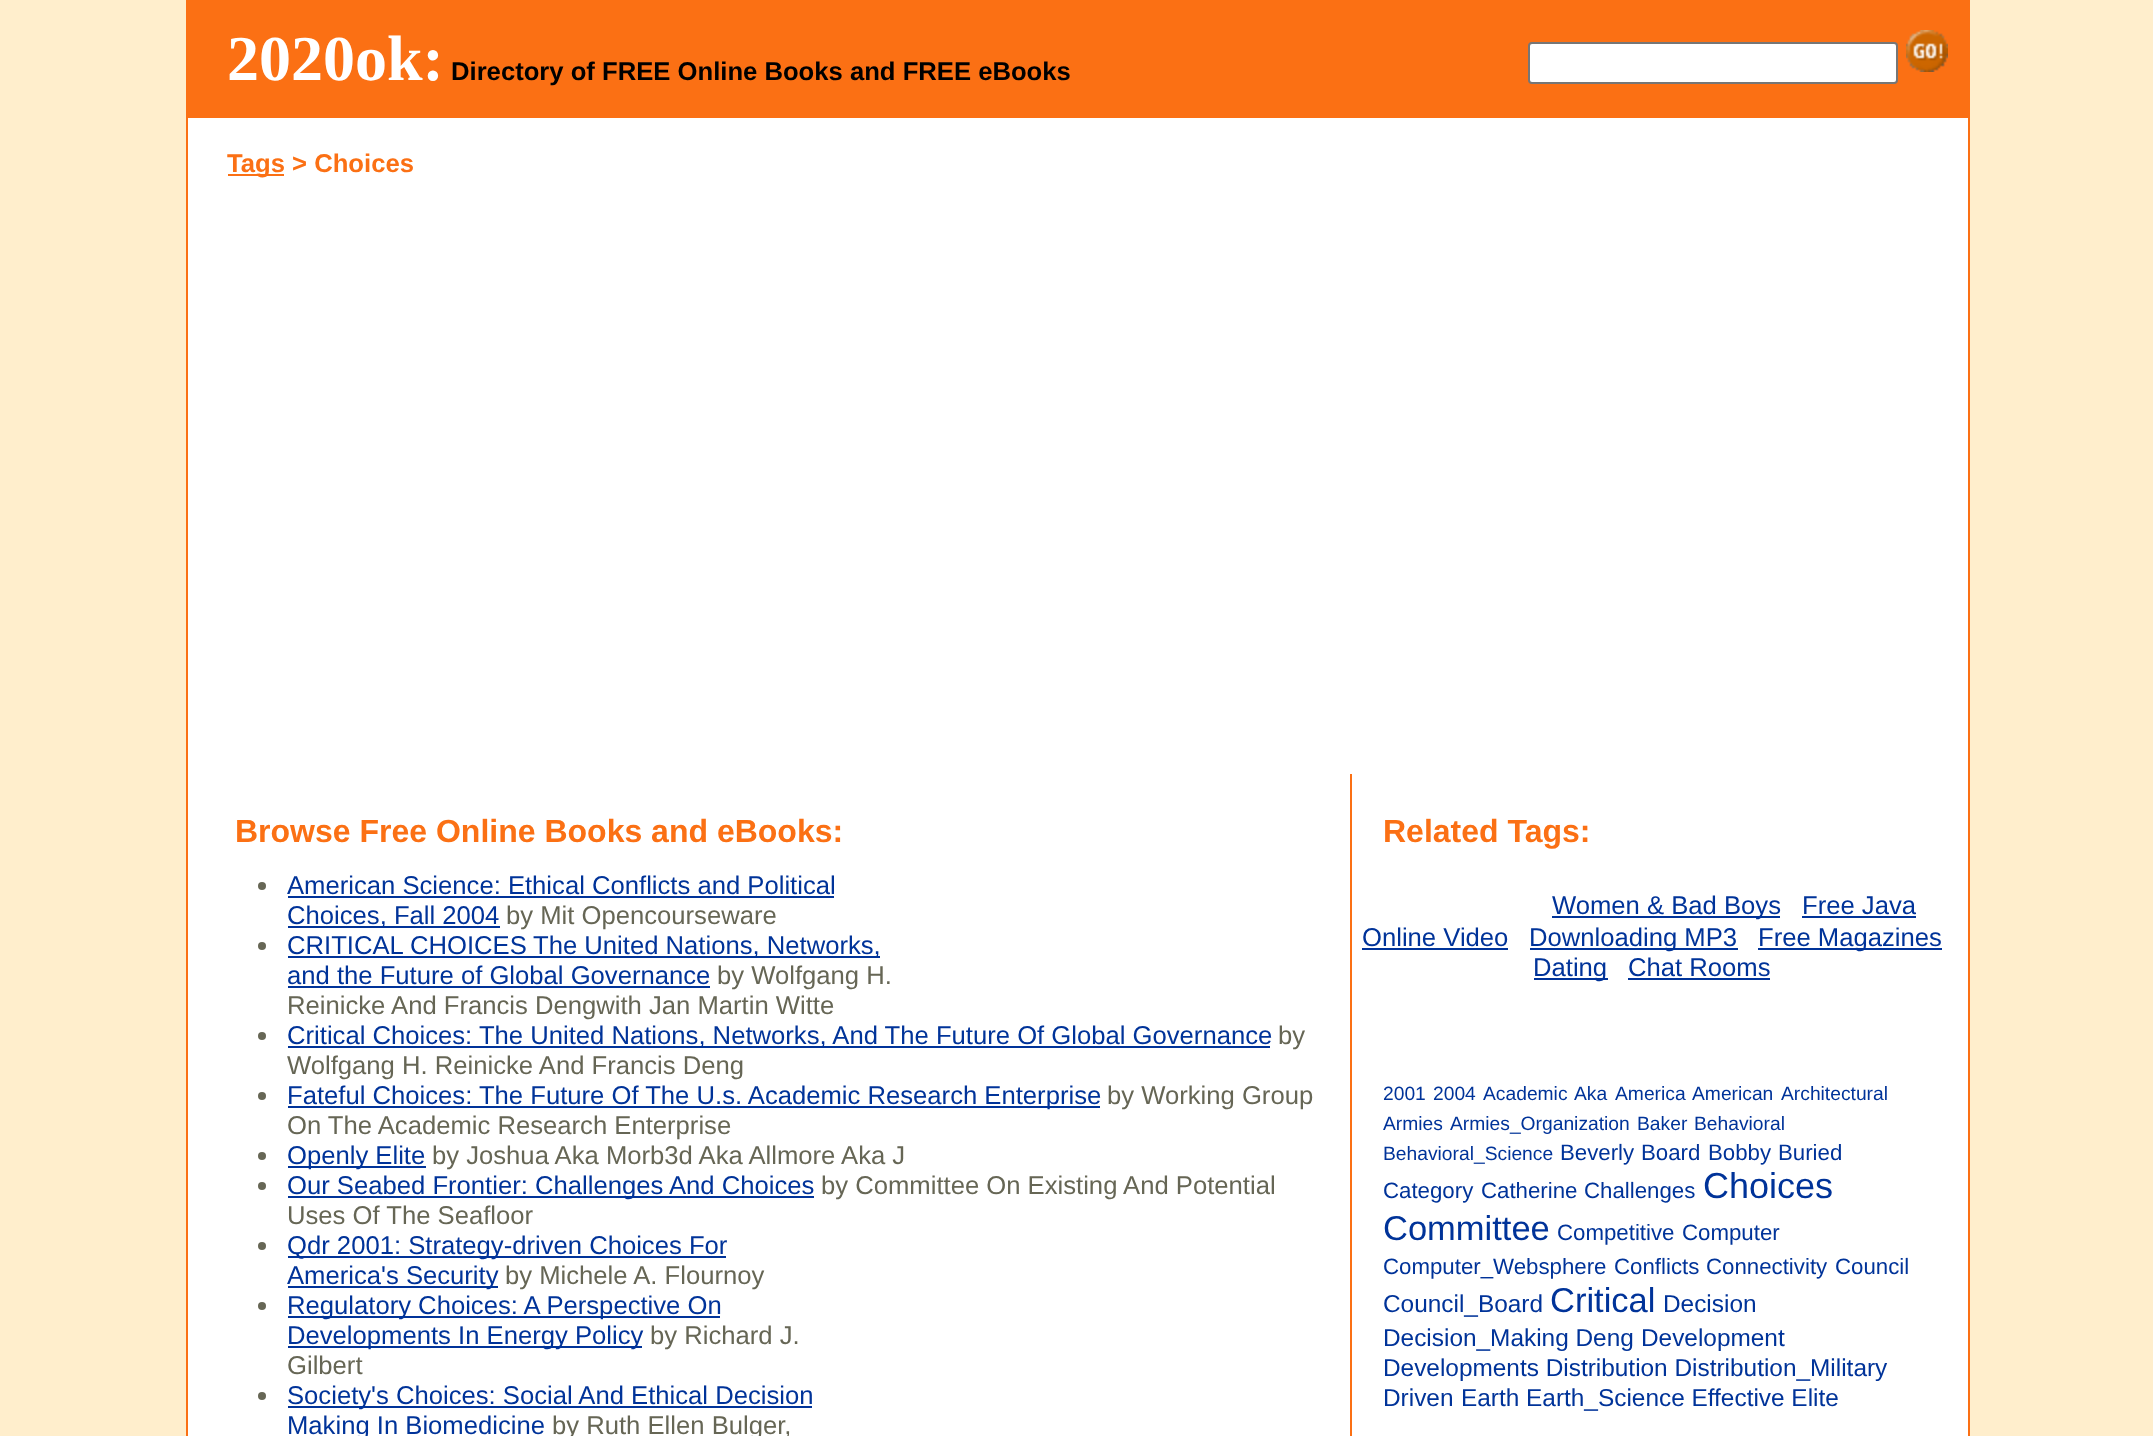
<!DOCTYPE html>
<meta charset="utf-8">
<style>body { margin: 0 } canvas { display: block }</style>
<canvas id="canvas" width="2153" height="1436"></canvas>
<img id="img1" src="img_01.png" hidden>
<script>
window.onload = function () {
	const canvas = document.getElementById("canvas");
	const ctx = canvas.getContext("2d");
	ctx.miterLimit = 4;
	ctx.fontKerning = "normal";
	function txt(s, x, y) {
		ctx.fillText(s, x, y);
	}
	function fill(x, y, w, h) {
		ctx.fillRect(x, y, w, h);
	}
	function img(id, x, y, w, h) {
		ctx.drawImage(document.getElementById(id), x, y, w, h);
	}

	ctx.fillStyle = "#FFEECC";
	fill(0, 0, 2153, 1436);
	ctx.fillStyle = "#FB7014";
	fill(1968, 0, 2, 1436);
	fill(186, 0, 2, 1436);
	fill(188, 0, 1780, 118);
	ctx.fillStyle = "#FFFFFF";
	ctx.beginPath();
	ctx.roundRect(1529, 43, 368, 40, 3);
	ctx.fill();
	ctx.strokeStyle = "#767676";
	ctx.lineWidth = 2;
	ctx.stroke();
	img("img1", 1906, 30, 42, 42);
	fill(188, 118, 1780, 1318);
	ctx.fillStyle = "#FB7014";
	fill(228, 174, 56, 2);
	ctx.fillStyle = "#666655";
	ctx.beginPath();
	ctx.arc(262, 886, 4, 0, Math.PI * 2);
	ctx.fill();
	ctx.fillStyle = "#003399";
	fill(288, 896, 546, 2);
	fill(288, 926, 212, 2);
	ctx.fillStyle = "#666655";
	ctx.beginPath();
	ctx.arc(262, 946, 4, 0, Math.PI * 2);
	ctx.fill();
	ctx.fillStyle = "#003399";
	fill(288, 956, 592, 2);
	fill(288, 986, 422, 2);
	ctx.fillStyle = "#666655";
	ctx.beginPath();
	ctx.arc(262, 1036, 4, 0, Math.PI * 2);
	ctx.fill();
	ctx.fillStyle = "#003399";
	fill(288, 1046, 982, 2);
	ctx.fillStyle = "#666655";
	ctx.beginPath();
	ctx.arc(262, 1096, 4, 0, Math.PI * 2);
	ctx.fill();
	ctx.fillStyle = "#003399";
	fill(288, 1106, 812, 2);
	ctx.fillStyle = "#666655";
	ctx.beginPath();
	ctx.arc(262, 1156, 4, 0, Math.PI * 2);
	ctx.fill();
	ctx.fillStyle = "#003399";
	fill(288, 1166, 138, 2);
	ctx.fillStyle = "#666655";
	ctx.beginPath();
	ctx.arc(262, 1186, 4, 0, Math.PI * 2);
	ctx.fill();
	ctx.fillStyle = "#003399";
	fill(288, 1196, 526, 2);
	ctx.fillStyle = "#666655";
	ctx.beginPath();
	ctx.arc(262, 1246, 4, 0, Math.PI * 2);
	ctx.fill();
	ctx.fillStyle = "#003399";
	fill(288, 1256, 438, 2);
	fill(288, 1286, 210, 2);
	ctx.fillStyle = "#666655";
	ctx.beginPath();
	ctx.arc(262, 1306, 4, 0, Math.PI * 2);
	ctx.fill();
	ctx.fillStyle = "#003399";
	fill(288, 1316, 432, 2);
	fill(288, 1346, 354, 2);
	ctx.fillStyle = "#666655";
	ctx.beginPath();
	ctx.arc(262, 1396, 4, 0, Math.PI * 2);
	ctx.fill();
	ctx.fillStyle = "#003399";
	fill(288, 1406, 524, 2);
	ctx.fillStyle = "#FB7014";
	fill(1350, 774, 2, 662);
	ctx.fillStyle = "#003399";
	fill(1552, 916, 228, 2);
	fill(1802, 916, 114, 2);
	fill(1362, 948, 146, 2);
	fill(1530, 948, 208, 2);
	fill(1758, 948, 184, 2);
	fill(1534, 978, 74, 2);
	fill(1628, 978, 142, 2);
	ctx.font = "bold 64px Liberation Serif";
	ctx.fillStyle = "#FFFFFF";
	txt("2020ok:", 227, 80);
	ctx.font = "bold 25.65px Liberation Sans";
	ctx.fillStyle = "#000000";
	txt("Directory of FREE Online Books and FREE eBooks", 451, 80);
	ctx.fillStyle = "#FB7014";
	txt("Tags > Choices", 227, 172);
	ctx.font = "bold 32px Liberation Sans";
	txt("Browse Free Online Books and eBooks:", 235, 842);
	ctx.font = "25.65px Liberation Sans";
	ctx.fillStyle = "#003399";
	txt("American Science: Ethical Conflicts and Political", 287, 894);
	txt("Choices, Fall 2004", 287, 924);
	ctx.fillStyle = "#666655";
	txt("by Mit Opencourseware", 506, 924);
	ctx.fillStyle = "#003399";
	txt("CRITICAL CHOICES", 287, 954);
	txt("The United Nations, Networks,", 533, 954);
	txt("and the Future of Global Governance", 287, 984);
	ctx.fillStyle = "#666655";
	txt("by Wolfgang H.", 717, 984);
	txt("Reinicke And Francis Dengwith Jan Martin Witte", 287, 1014);
	ctx.fillStyle = "#003399";
	txt("Critical Choices: The United Nations, Networks, And The Future Of Global Governance", 287, 1044);
	ctx.fillStyle = "#666655";
	txt("by", 1278, 1044);
	txt("Wolfgang H. Reinicke And Francis Deng", 287, 1074);
	ctx.fillStyle = "#003399";
	txt("Fateful Choices: The Future Of The U.s. Academic Research Enterprise", 287, 1104);
	ctx.fillStyle = "#666655";
	txt("by Working Group", 1107, 1104);
	txt("On The Academic Research Enterprise", 287, 1134);
	ctx.fillStyle = "#003399";
	txt("Openly Elite", 287, 1164);
	ctx.fillStyle = "#666655";
	txt("by Joshua Aka Morb3d Aka Allmore Aka J", 432, 1164);
	ctx.fillStyle = "#003399";
	txt("Our Seabed Frontier: Challenges And Choices", 287, 1194);
	ctx.fillStyle = "#666655";
	txt("by Committee On Existing And Potential", 821, 1194);
	txt("Uses Of The Seafloor", 287, 1224);
	ctx.fillStyle = "#003399";
	txt("Qdr 2001: Strategy-driven Choices For", 287, 1254);
	txt("America's Security", 287, 1284);
	ctx.fillStyle = "#666655";
	txt("by Michele A. Flournoy", 505, 1284);
	ctx.fillStyle = "#003399";
	txt("Regulatory Choices: A Perspective On", 287, 1314);
	txt("Developments In Energy Policy", 287, 1344);
	ctx.fillStyle = "#666655";
	txt("by Richard J.", 650, 1344);
	txt("Gilbert", 287, 1374);
	ctx.fillStyle = "#003399";
	txt("Society's Choices: Social And Ethical Decision", 287, 1404);
	txt("Making In Biomedicine", 287, 1434);
	ctx.fillStyle = "#666655";
	txt("by Ruth Ellen Bulger,", 552, 1434);
	ctx.font = "bold 32px Liberation Sans";
	ctx.fillStyle = "#FB7014";
	txt("Related Tags:", 1383, 842);
	ctx.font = "25.65px Liberation Sans";
	ctx.fillStyle = "#003399";
	txt("Women & Bad Boys", 1552, 914);
	txt("Free Java", 1802, 914);
	txt("Online Video", 1362, 946);
	txt("Downloading MP3", 1529, 946);
	txt("Free Magazines", 1758, 946);
	txt("Dating", 1533, 976);
	txt("Chat Rooms", 1628, 976);
	ctx.font = "19.25px Liberation Sans";
	txt("2001", 1383, 1100);
	txt("2004", 1433, 1100);
	txt("Academic", 1483, 1100);
	txt("Aka", 1574, 1100);
	txt("America", 1615, 1100);
	txt("American", 1692, 1100);
	txt("Architectural", 1781, 1100);
	txt("Armies", 1383, 1130);
	txt("Armies_Organization", 1450, 1130);
	txt("Baker", 1637, 1130);
	txt("Behavioral", 1694, 1130);
	txt("Behavioral_Science", 1383, 1160);
	ctx.font = "22.25px Liberation Sans";
	txt("Beverly", 1560, 1160);
	txt("Board", 1641, 1160);
	txt("Bobby", 1708, 1160);
	txt("Buried", 1778, 1160);
	txt("Category", 1383, 1198);
	txt("Catherine", 1481, 1198);
	txt("Challenges", 1584, 1198);
	ctx.font = "36px Liberation Sans";
	txt("Choices", 1703, 1198);
	ctx.font = "34.5px Liberation Sans";
	txt("Committee", 1383, 1240);
	ctx.font = "22.25px Liberation Sans";
	txt("Competitive", 1557, 1240);
	txt("Computer", 1682, 1240);
	txt("Computer_Websphere", 1383, 1274);
	txt("Conflicts", 1614, 1274);
	txt("Connectivity", 1706, 1274);
	txt("Council", 1835, 1274);
	ctx.font = "24.4px Liberation Sans";
	txt("Council_Board", 1383, 1312);
	ctx.font = "34.5px Liberation Sans";
	txt("Critical", 1550, 1312);
	ctx.font = "24.4px Liberation Sans";
	txt("Decision", 1663, 1312);
	txt("Decision_Making Deng", 1383, 1346);
	txt("Development", 1641, 1346);
	txt("Developments Distribution Distribution_Military", 1383, 1376);
	txt("Driven", 1383, 1406);
	txt("Earth Earth_Science Effective Elite", 1461, 1406);
};
</script>
